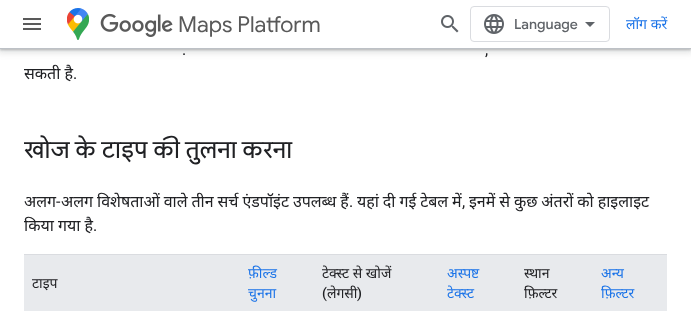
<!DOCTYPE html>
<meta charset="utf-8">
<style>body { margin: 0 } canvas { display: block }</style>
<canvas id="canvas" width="691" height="311"></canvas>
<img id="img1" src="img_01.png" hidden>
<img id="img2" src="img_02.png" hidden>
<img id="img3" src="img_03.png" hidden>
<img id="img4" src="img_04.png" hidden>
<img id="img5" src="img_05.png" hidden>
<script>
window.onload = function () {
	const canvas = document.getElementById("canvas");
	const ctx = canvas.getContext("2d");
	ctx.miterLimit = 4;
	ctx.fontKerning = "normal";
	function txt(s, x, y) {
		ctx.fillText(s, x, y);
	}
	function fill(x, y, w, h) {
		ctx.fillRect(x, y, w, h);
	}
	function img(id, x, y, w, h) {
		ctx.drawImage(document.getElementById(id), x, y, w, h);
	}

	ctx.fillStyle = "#FFFFFF";
	fill(0, 0, 691, 311);
	ctx.fillStyle = "rgba(60, 64, 67, 0.15)";
	ctx.filter = "blur(3px)";
	ctx.beginPath();
	ctx.rect(-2, -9, 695, 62);
	ctx.fill();
	ctx.filter = "none";
	ctx.fillStyle = "rgba(60, 64, 67, 0.3)";
	ctx.filter = "blur(1px)";
	ctx.beginPath();
	ctx.rect(0, -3, 691, 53);
	ctx.fill();
	ctx.filter = "none";
	ctx.fillStyle = "#FFFFFF";
	fill(0, 0, 691, 48);
	ctx.fillStyle = "#BDC1C6";
	fill(0, 48, 691, 1);
	img("img1", 23, 18, 18, 12);
	img("img2", 67, 8, 22, 32);
	img("img3", 100, 13, 73, 24);
	img("img4", 441, 15, 18, 18);
	ctx.beginPath();
	ctx.roundRect(470.5, 6.5, 139, 35, 3.5);
	ctx.strokeStyle = "#DADCE0";
	ctx.stroke();
	img("img5", 484, 14, 20, 20);
	ctx.fillStyle = "#5F6368";
	ctx.beginPath();
	ctx.moveTo(590, 27);
	ctx.lineTo(585, 22);
	ctx.lineTo(595, 22);
	ctx.closePath();
	ctx.fill();
	ctx.fillStyle = "#DADCE0";
	fill(24, 254, 643, 1);
	ctx.fillStyle = "#E8EAED";
	fill(24, 255, 643, 56);
	ctx.font = "22px Google Sans";
	ctx.fillStyle = "#595959";
	txt("Maps Platform", 178, 32);
	ctx.font = "500 14px Google Sans";
	ctx.fillStyle = "#5F6368";
	txt("Language", 514, 29);
	ctx.font = "14px Noto Sans";
	ctx.fillStyle = "#1A73E8";
	txt("लॉग करें", 626, 29);
	ctx.font = "16px Roboto";
	ctx.fillStyle = "#202124";
	txt(".", 182, 55);
	txt(",", 485, 55);
	ctx.font = "16px Noto Sans";
	txt("सकती है", 24, 79);
	ctx.font = "16px Roboto";
	txt(".", 73, 79);
	ctx.save();
	ctx.beginPath();
	ctx.rect(24, 0, 643, 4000);
	ctx.clip();
	ctx.font = "24px Google Sans";
	txt("खोज के टाइप की तुलना करना", 24, 158);
	ctx.restore();
	ctx.font = "16px Noto Sans";
	txt("अलग", 24, 207);
	ctx.font = "16px Roboto";
	txt("-", 56, 207);
	ctx.wordSpacing = "-0.25px";
	ctx.font = "16px Noto Sans";
	txt("अलग विशेषताओं वाले तीन सर्च एंडपॉइंट उपलब्ध हैं", 61, 207);
	txt("यहां दी गई टेबल में", 357, 207);
	txt("इनमें से कुछ अंतरों को हाइलाइट", 469, 207);
	ctx.wordSpacing = "0px";
	ctx.font = "16px Roboto";
	txt(".", 349, 207);
	txt(",", 462, 207);
	ctx.font = "16px Noto Sans";
	txt("किया गया है", 24, 231);
	ctx.font = "16px Roboto";
	txt(".", 93, 231);
	ctx.font = "14px Noto Sans";
	txt("टाइप", 32, 288);
	ctx.fillStyle = "#1A73E8";
	txt("फ़ील्ड", 248, 278);
	txt("चुनना", 248, 298);
	ctx.fillStyle = "#202124";
	txt("टेक्स्ट से खोजें", 322, 278);
	ctx.font = "500 14px Roboto";
	txt("(", 322, 298);
	ctx.font = "14px Noto Sans";
	txt("लेगसी", 327, 298);
	ctx.font = "500 14px Roboto";
	txt(")", 357, 298);
	ctx.font = "14px Noto Sans";
	ctx.fillStyle = "#1A73E8";
	txt("अस्पष्ट", 447, 278);
	txt("टेक्स्ट", 447, 298);
	ctx.fillStyle = "#202124";
	txt("स्थान", 524, 278);
	txt("फ़िल्टर", 524, 298);
	ctx.fillStyle = "#1A73E8";
	txt("अन्य", 601, 278);
	txt("फ़िल्टर", 601, 298);
};
</script>
